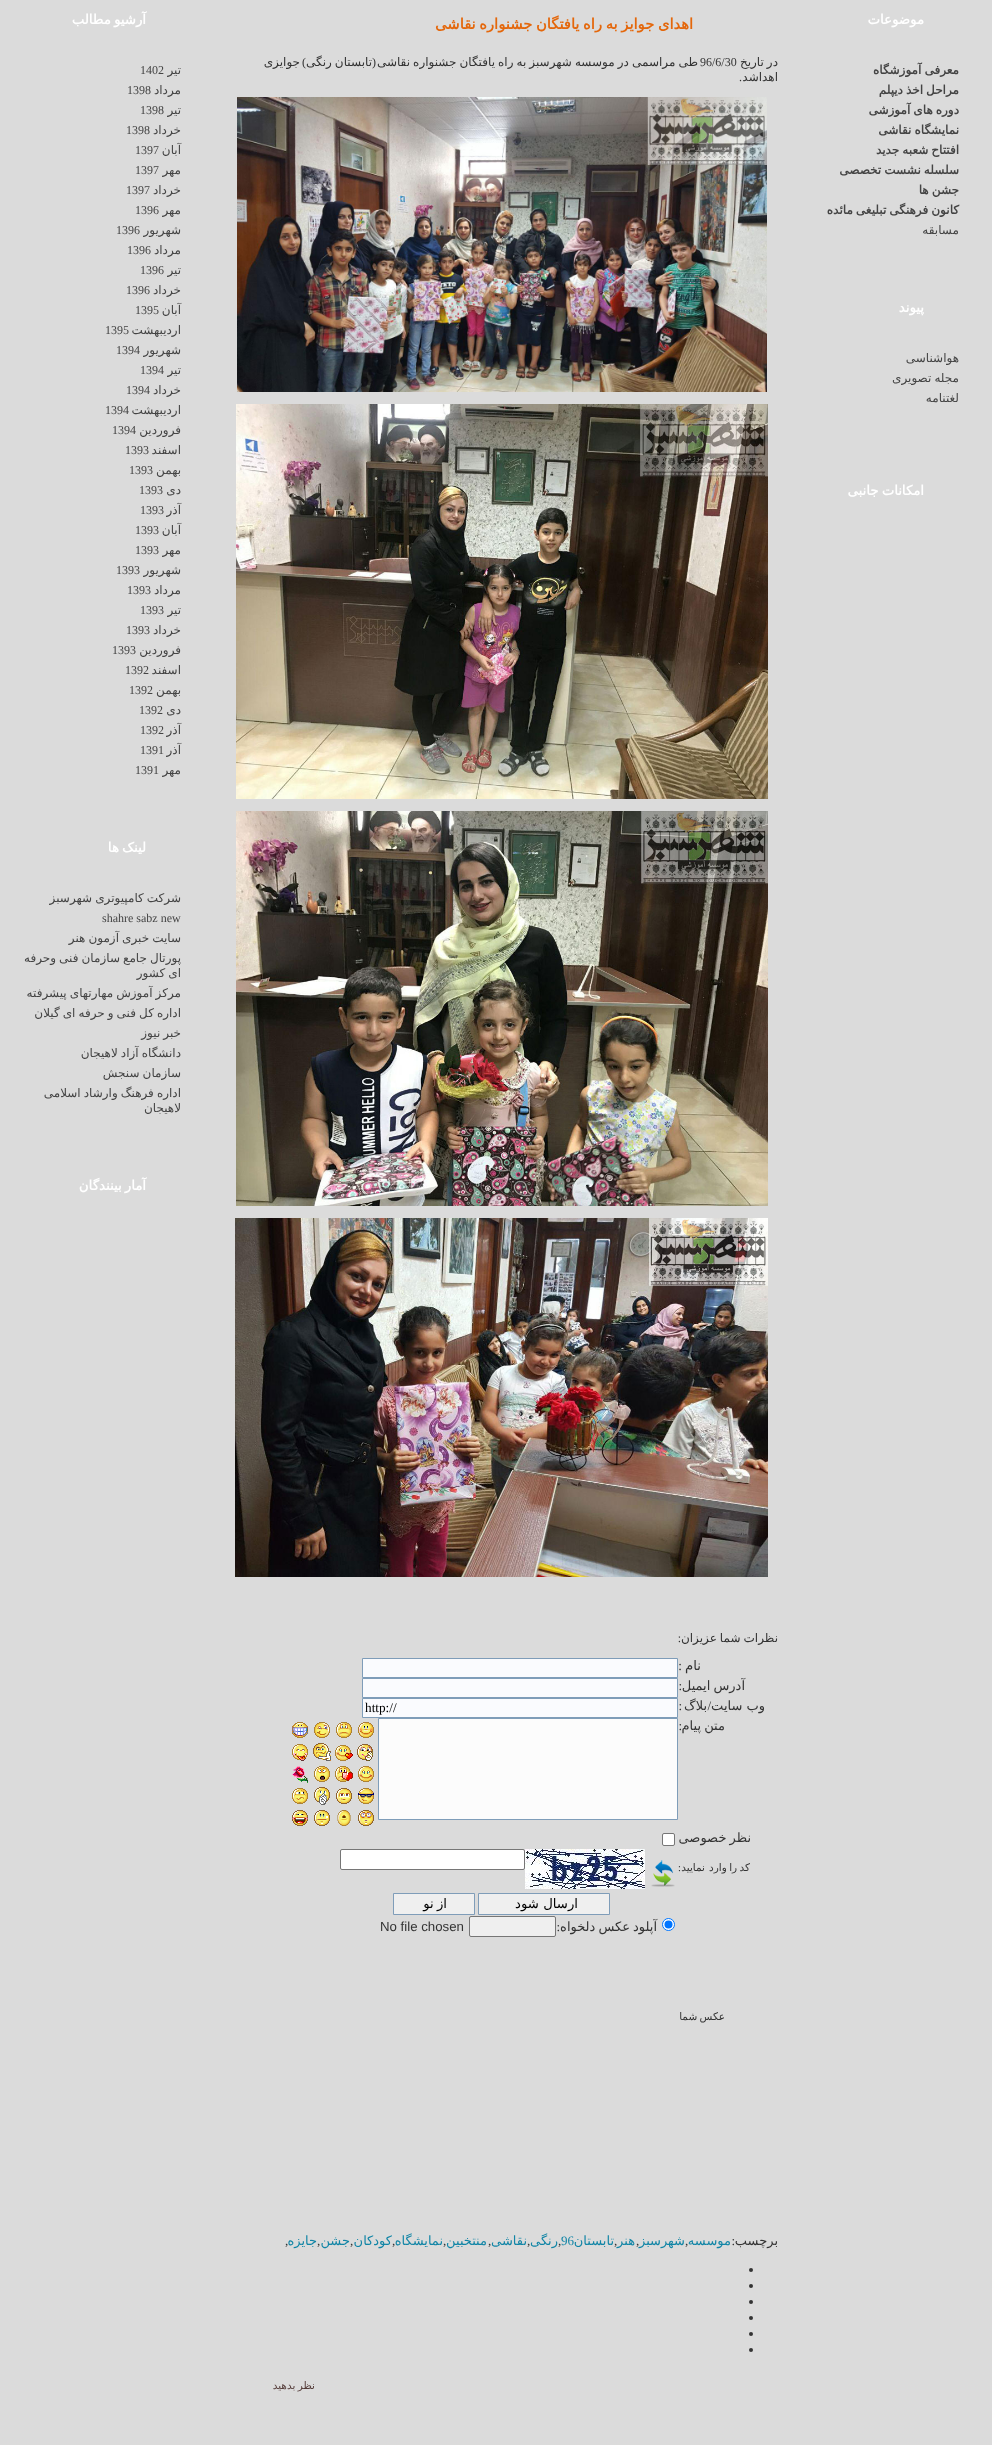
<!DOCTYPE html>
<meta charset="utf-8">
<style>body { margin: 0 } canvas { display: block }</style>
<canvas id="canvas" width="992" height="2445"></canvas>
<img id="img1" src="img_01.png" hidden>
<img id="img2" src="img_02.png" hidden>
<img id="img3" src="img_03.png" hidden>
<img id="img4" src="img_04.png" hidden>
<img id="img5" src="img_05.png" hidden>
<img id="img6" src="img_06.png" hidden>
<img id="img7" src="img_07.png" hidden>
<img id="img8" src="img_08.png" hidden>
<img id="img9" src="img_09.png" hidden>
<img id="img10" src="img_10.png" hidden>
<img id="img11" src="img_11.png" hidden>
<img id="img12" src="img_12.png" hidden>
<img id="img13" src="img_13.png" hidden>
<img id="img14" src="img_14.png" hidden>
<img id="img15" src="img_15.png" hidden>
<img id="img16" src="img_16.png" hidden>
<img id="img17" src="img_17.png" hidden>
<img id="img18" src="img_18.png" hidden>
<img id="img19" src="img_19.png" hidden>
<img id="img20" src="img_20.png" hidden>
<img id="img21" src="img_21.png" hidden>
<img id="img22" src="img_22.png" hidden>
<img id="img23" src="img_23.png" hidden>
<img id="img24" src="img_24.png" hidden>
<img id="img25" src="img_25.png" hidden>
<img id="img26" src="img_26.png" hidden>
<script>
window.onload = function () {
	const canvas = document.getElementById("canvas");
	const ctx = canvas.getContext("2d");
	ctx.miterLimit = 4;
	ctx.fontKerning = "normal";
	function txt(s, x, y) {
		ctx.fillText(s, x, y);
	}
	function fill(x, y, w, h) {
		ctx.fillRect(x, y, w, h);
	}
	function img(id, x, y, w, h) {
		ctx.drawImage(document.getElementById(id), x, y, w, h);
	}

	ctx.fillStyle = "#DBDBDB";
	fill(0, 0, 992, 2445);
	img("img1", 237, 97, 530, 295);
	img("img2", 236, 404, 532, 395);
	img("img3", 236, 811, 532, 395);
	img("img4", 235, 1218, 533, 359);
	ctx.fillStyle = "#FAFBFE";
	ctx.beginPath();
	ctx.rect(362.5, 1658.5, 315, 19);
	ctx.fill();
	ctx.strokeStyle = "#7F9DB9";
	ctx.stroke();
	ctx.beginPath();
	ctx.rect(362.5, 1678.5, 315, 19);
	ctx.fill();
	ctx.stroke();
	ctx.beginPath();
	ctx.rect(362.5, 1698.5, 315, 19);
	ctx.fill();
	ctx.stroke();
	ctx.fillStyle = "#FCFCFC";
	ctx.beginPath();
	ctx.rect(378.5, 1718.5, 299, 101);
	ctx.fill();
	ctx.stroke();
	img("img5", 358, 1722, 16, 16);
	img("img6", 336, 1722, 16, 16);
	img("img7", 314, 1722, 16, 16);
	img("img8", 292, 1722, 16, 16);
	img("img9", 357, 1744, 16, 17);
	img("img10", 335, 1745, 18, 16);
	img("img11", 313, 1743, 18, 18);
	img("img12", 292, 1744, 16, 17);
	img("img13", 358, 1766, 16, 16);
	img("img14", 335, 1766, 18, 16);
	img("img15", 314, 1766, 16, 16);
	img("img16", 292, 1766, 16, 17);
	img("img17", 358, 1788, 16, 16);
	img("img18", 336, 1788, 16, 16);
	img("img19", 314, 1787, 16, 18);
	img("img20", 292, 1788, 16, 16);
	img("img21", 358, 1810, 16, 16);
	img("img22", 337, 1810, 14, 16);
	img("img23", 314, 1810, 16, 16);
	img("img24", 292, 1810, 16, 16);
	ctx.fillStyle = "#FFFFFF";
	ctx.beginPath();
	ctx.roundRect(662.5, 1833.5, 12, 12, 1.5);
	ctx.fill();
	ctx.strokeStyle = "#767676";
	ctx.stroke();
	img("img25", 651, 1860, 24, 27);
	img("img26", 525, 1849, 120, 40);
	ctx.beginPath();
	ctx.roundRect(340.5, 1849.5, 184, 20, 1.5);
	ctx.fill();
	ctx.stroke();
	ctx.fillStyle = "#EFEFEF";
	ctx.beginPath();
	ctx.rect(478.5, 1893.5, 131, 21);
	ctx.fill();
	ctx.strokeStyle = "#7F9DB9";
	ctx.stroke();
	ctx.beginPath();
	ctx.rect(393.5, 1893.5, 81, 21);
	ctx.fill();
	ctx.stroke();
	ctx.fillStyle = "#FFFFFF";
	ctx.beginPath();
	ctx.arc(668.5, 1924.5, 6, 0, Math.PI * 2);
	ctx.fill();
	ctx.strokeStyle = "#0075FF";
	ctx.stroke();
	ctx.fillStyle = "#0075FF";
	ctx.beginPath();
	ctx.arc(668.5, 1924.5, 4, 0, Math.PI * 2);
	ctx.fill();
	ctx.fillStyle = "#EFEFEF";
	ctx.beginPath();
	ctx.roundRect(469.5, 1916.5, 86, 20, 1.5);
	ctx.fill();
	ctx.strokeStyle = "#767676";
	ctx.stroke();
	ctx.fillStyle = "#333333";
	ctx.beginPath();
	ctx.arc(751, 2270, 2, 0, Math.PI * 2);
	ctx.fill();
	ctx.beginPath();
	ctx.arc(751, 2286, 2, 0, Math.PI * 2);
	ctx.fill();
	ctx.beginPath();
	ctx.arc(751, 2302, 2, 0, Math.PI * 2);
	ctx.fill();
	ctx.beginPath();
	ctx.arc(751, 2318, 2, 0, Math.PI * 2);
	ctx.fill();
	ctx.beginPath();
	ctx.arc(751, 2334, 2, 0, Math.PI * 2);
	ctx.fill();
	ctx.beginPath();
	ctx.arc(751, 2350, 2, 0, Math.PI * 2);
	ctx.fill();
	ctx.direction = "rtl";
	ctx.font = "bold 13.25px DejaVu Sans";
	ctx.fillStyle = "#FFFFFF";
	txt("موضوعات", 924, 24);
	ctx.wordSpacing = "-0.75px";
	ctx.font = "bold 12px DejaVu Sans";
	ctx.fillStyle = "#444444";
	txt("معرفی آموزشگاه", 959, 74);
	txt("مراحل اخذ دیپلم", 959, 94);
	txt("دوره های آموزشی", 959, 114);
	txt("نمایشگاه نقاشی", 959, 134);
	txt("افتتاح شعبه جدید", 959, 154);
	txt("سلسله نشست تخصصی", 959, 174);
	txt("جشن ها", 959, 194);
	txt("کانون فرهنگی تبلیغی مائده", 959, 214);
	ctx.wordSpacing = "0px";
	ctx.font = "12px DejaVu Sans";
	txt("مسابقه", 959, 234);
	ctx.font = "bold 13.25px DejaVu Sans";
	ctx.fillStyle = "#FFFFFF";
	txt("پيوند", 924, 312);
	ctx.font = "12px DejaVu Sans";
	ctx.fillStyle = "#444444";
	txt("هواشناسی", 959, 362);
	ctx.wordSpacing = "-0.75px";
	txt("مجله تصویری", 959, 382);
	ctx.wordSpacing = "0px";
	txt("لغتنامه", 959, 402);
	ctx.wordSpacing = "-1px";
	ctx.font = "bold 13.25px DejaVu Sans";
	ctx.fillStyle = "#FFFFFF";
	txt("امکانات جانبی", 924, 495);
	ctx.font = "bold 14.7px DejaVu Sans";
	ctx.fillStyle = "#E4670B";
	txt("اهدای جوایز به راه یافتگان جشنواره نقاشی", 693, 29);
	ctx.wordSpacing = "-0.75px";
	ctx.font = "12px DejaVu Sans";
	ctx.fillStyle = "#333333";
	txt("در تاریخ", 778, 66);
	txt("طی مراسمی در موسسه شهرسبز به راه یافتگان جشنواره نقاشی", 698, 66);
	ctx.wordSpacing = "0px";
	ctx.direction = "ltr";
	ctx.font = "12px Liberation Serif";
	txt("96/6/30", 700, 66);
	ctx.wordSpacing = "-0.75px";
	ctx.direction = "rtl";
	ctx.font = "12px DejaVu Sans";
	txt("تابستان رنگی", 372, 66);
	ctx.wordSpacing = "0px";
	ctx.font = "12px Liberation Serif";
	txt("(", 376, 66);
	txt(")", 306, 66);
	ctx.font = "12px DejaVu Sans";
	txt("جوایزی", 300, 66);
	txt("اهداشد", 778, 81);
	ctx.font = "12px Liberation Serif";
	txt(".", 742, 81);
	ctx.save();
	ctx.beginPath();
	ctx.rect(225, 43, 553, 2328);
	ctx.clip();
	ctx.wordSpacing = "-0.75px";
	ctx.font = "12px DejaVu Sans";
	txt("نظرات شما عزیزان", 778, 1642);
	ctx.restore();
	txt(":", 681, 1642);
	ctx.font = "13.25px DejaVu Sans";
	txt("نام", 701, 1670);
	ctx.font = "13.25px Liberation Serif";
	txt(":", 682, 1670);
	ctx.wordSpacing = "-1px";
	ctx.font = "13px DejaVu Sans";
	txt("آدرس ایمیل", 745, 1690);
	ctx.wordSpacing = "0px";
	ctx.font = "13px Liberation Serif";
	txt(":", 682, 1690);
	txt("/", 711, 1710);
	ctx.font = "13px DejaVu Sans";
	txt("وب سایت", 765, 1710);
	txt("بلاگ", 707, 1710);
	ctx.font = "13px Liberation Serif";
	txt(":", 682, 1710);
	ctx.direction = "ltr";
	ctx.font = "13.25px Liberation Serif";
	ctx.fillStyle = "#000000";
	txt("http://", 365, 1712);
	ctx.wordSpacing = "-1px";
	ctx.direction = "rtl";
	ctx.font = "13px DejaVu Sans";
	ctx.fillStyle = "#333333";
	txt("متن پیام", 725, 1730);
	ctx.wordSpacing = "0px";
	ctx.font = "13px Liberation Serif";
	txt(":", 682, 1730);
	ctx.wordSpacing = "-1px";
	ctx.font = "13px DejaVu Sans";
	txt("نظر خصوصی", 751, 1842);
	ctx.font = "10.5px DejaVu Sans";
	txt("کد را وارد", 750, 1871);
	ctx.wordSpacing = "0px";
	txt("نمایید", 705, 1871);
	ctx.font = "10.5px Liberation Serif";
	txt(":", 681, 1871);
	ctx.font = "13.25px DejaVu Sans";
	ctx.fillStyle = "#000000";
	txt("ارسال شود", 578, 1908);
	ctx.wordSpacing = "-1px";
	txt("از نو", 447, 1908);
	ctx.wordSpacing = "0px";
	ctx.font = "13px DejaVu Sans";
	ctx.fillStyle = "#333333";
	txt("آپلود", 657, 1931);
	ctx.wordSpacing = "-1px";
	txt("عکس دلخواه", 630, 1931);
	ctx.wordSpacing = "0px";
	ctx.font = "13px Liberation Serif";
	txt(":", 560, 1931);
	ctx.direction = "ltr";
	ctx.font = "13.25px Liberation Sans";
	txt("No file chosen", 380, 1931);
	ctx.wordSpacing = "-1px";
	ctx.direction = "rtl";
	ctx.font = "10.5px DejaVu Sans";
	txt("عکس شما", 725, 2020);
	ctx.wordSpacing = "0px";
	ctx.font = "13px DejaVu Sans";
	txt("برچسب", 778, 2245);
	ctx.font = "13px Liberation Serif";
	txt(":", 735, 2245);
	ctx.font = "13px DejaVu Sans";
	ctx.fillStyle = "#1185A6";
	txt("موسسه", 731, 2245);
	ctx.direction = "ltr";
	ctx.font = "13px Liberation Serif";
	ctx.fillStyle = "#333333";
	txt(",", 685, 2245);
	ctx.direction = "rtl";
	ctx.font = "13px DejaVu Sans";
	ctx.fillStyle = "#1185A6";
	txt("شهرسبز", 685, 2245);
	ctx.direction = "ltr";
	ctx.font = "13px Liberation Serif";
	ctx.fillStyle = "#333333";
	txt(",", 636, 2245);
	ctx.direction = "rtl";
	ctx.font = "13px DejaVu Sans";
	ctx.fillStyle = "#1185A6";
	txt("هنر", 635, 2245);
	ctx.direction = "ltr";
	ctx.font = "13px Liberation Serif";
	ctx.fillStyle = "#333333";
	txt(",", 614, 2245);
	ctx.direction = "rtl";
	ctx.font = "13px DejaVu Sans";
	ctx.fillStyle = "#1185A6";
	txt("تابستان", 614, 2245);
	ctx.direction = "ltr";
	ctx.font = "13px Liberation Serif";
	txt("96", 561, 2245);
	ctx.fillStyle = "#333333";
	txt(",", 558, 2245);
	ctx.direction = "rtl";
	ctx.font = "13px DejaVu Sans";
	ctx.fillStyle = "#1185A6";
	txt("رنگی", 558, 2245);
	ctx.direction = "ltr";
	ctx.font = "13px Liberation Serif";
	ctx.fillStyle = "#333333";
	txt(",", 527, 2245);
	ctx.direction = "rtl";
	ctx.font = "13px DejaVu Sans";
	ctx.fillStyle = "#1185A6";
	txt("نقاشی", 527, 2245);
	ctx.direction = "ltr";
	ctx.font = "13px Liberation Serif";
	ctx.fillStyle = "#333333";
	txt(",", 488, 2245);
	ctx.direction = "rtl";
	ctx.font = "13px DejaVu Sans";
	ctx.fillStyle = "#1185A6";
	txt("منتخبین", 487, 2245);
	ctx.direction = "ltr";
	ctx.font = "13px Liberation Serif";
	ctx.fillStyle = "#333333";
	txt(",", 443, 2245);
	ctx.direction = "rtl";
	ctx.font = "13px DejaVu Sans";
	ctx.fillStyle = "#1185A6";
	txt("نمایشگاه", 443, 2245);
	ctx.direction = "ltr";
	ctx.font = "13px Liberation Serif";
	ctx.fillStyle = "#333333";
	txt(",", 392, 2245);
	ctx.direction = "rtl";
	ctx.font = "13px DejaVu Sans";
	ctx.fillStyle = "#1185A6";
	txt("کودکان", 392, 2245);
	ctx.direction = "ltr";
	ctx.font = "13px Liberation Serif";
	ctx.fillStyle = "#333333";
	txt(",", 350, 2245);
	ctx.direction = "rtl";
	ctx.font = "13px DejaVu Sans";
	ctx.fillStyle = "#1185A6";
	txt("جشن", 350, 2245);
	ctx.direction = "ltr";
	ctx.font = "13px Liberation Serif";
	ctx.fillStyle = "#333333";
	txt(",", 317, 2245);
	ctx.direction = "rtl";
	ctx.font = "13px DejaVu Sans";
	ctx.fillStyle = "#1185A6";
	txt("جایزه", 317, 2245);
	ctx.direction = "ltr";
	ctx.font = "13px Liberation Serif";
	ctx.fillStyle = "#333333";
	txt(",", 285, 2245);
	ctx.wordSpacing = "-1px";
	ctx.direction = "rtl";
	ctx.font = "10.5px DejaVu Sans";
	ctx.fillStyle = "#543B38";
	txt("نظر بدهيد", 315, 2389);
	ctx.font = "bold 13.25px DejaVu Sans";
	ctx.fillStyle = "#FFFFFF";
	txt("آرشيو مطالب", 146, 24);
	ctx.wordSpacing = "0px";
	ctx.font = "12px DejaVu Sans";
	ctx.fillStyle = "#444444";
	txt("تير", 181, 74);
	ctx.direction = "ltr";
	ctx.font = "12px Liberation Serif";
	txt("1402", 140, 74);
	ctx.direction = "rtl";
	ctx.font = "12px DejaVu Sans";
	txt("مرداد", 181, 94);
	ctx.direction = "ltr";
	ctx.font = "12px Liberation Serif";
	txt("1398", 127, 94);
	ctx.direction = "rtl";
	ctx.font = "12px DejaVu Sans";
	txt("تير", 181, 114);
	ctx.direction = "ltr";
	ctx.font = "12px Liberation Serif";
	txt("1398", 140, 114);
	ctx.direction = "rtl";
	ctx.font = "12px DejaVu Sans";
	txt("خرداد", 181, 134);
	ctx.direction = "ltr";
	ctx.font = "12px Liberation Serif";
	txt("1398", 126, 134);
	ctx.direction = "rtl";
	ctx.font = "12px DejaVu Sans";
	txt("آبان", 181, 154);
	ctx.direction = "ltr";
	ctx.font = "12px Liberation Serif";
	txt("1397", 135, 154);
	ctx.direction = "rtl";
	ctx.font = "12px DejaVu Sans";
	txt("مهر", 181, 174);
	ctx.direction = "ltr";
	ctx.font = "12px Liberation Serif";
	txt("1397", 135, 174);
	ctx.direction = "rtl";
	ctx.font = "12px DejaVu Sans";
	txt("خرداد", 181, 194);
	ctx.direction = "ltr";
	ctx.font = "12px Liberation Serif";
	txt("1397", 126, 194);
	ctx.direction = "rtl";
	ctx.font = "12px DejaVu Sans";
	txt("مهر", 181, 214);
	ctx.direction = "ltr";
	ctx.font = "12px Liberation Serif";
	txt("1396", 135, 214);
	ctx.direction = "rtl";
	ctx.font = "12px DejaVu Sans";
	txt("شهريور", 181, 234);
	ctx.direction = "ltr";
	ctx.font = "12px Liberation Serif";
	txt("1396", 116, 234);
	ctx.direction = "rtl";
	ctx.font = "12px DejaVu Sans";
	txt("مرداد", 181, 254);
	ctx.direction = "ltr";
	ctx.font = "12px Liberation Serif";
	txt("1396", 127, 254);
	ctx.direction = "rtl";
	ctx.font = "12px DejaVu Sans";
	txt("تير", 181, 274);
	ctx.direction = "ltr";
	ctx.font = "12px Liberation Serif";
	txt("1396", 140, 274);
	ctx.direction = "rtl";
	ctx.font = "12px DejaVu Sans";
	txt("خرداد", 181, 294);
	ctx.direction = "ltr";
	ctx.font = "12px Liberation Serif";
	txt("1396", 126, 294);
	ctx.direction = "rtl";
	ctx.font = "12px DejaVu Sans";
	txt("آبان", 181, 314);
	ctx.direction = "ltr";
	ctx.font = "12px Liberation Serif";
	txt("1395", 135, 314);
	ctx.direction = "rtl";
	ctx.font = "12px DejaVu Sans";
	txt("ارديبهشت", 181, 334);
	ctx.direction = "ltr";
	ctx.font = "12px Liberation Serif";
	txt("1395", 105, 334);
	ctx.direction = "rtl";
	ctx.font = "12px DejaVu Sans";
	txt("شهريور", 181, 354);
	ctx.direction = "ltr";
	ctx.font = "12px Liberation Serif";
	txt("1394", 116, 354);
	ctx.direction = "rtl";
	ctx.font = "12px DejaVu Sans";
	txt("تير", 181, 374);
	ctx.direction = "ltr";
	ctx.font = "12px Liberation Serif";
	txt("1394", 140, 374);
	ctx.direction = "rtl";
	ctx.font = "12px DejaVu Sans";
	txt("خرداد", 181, 394);
	ctx.direction = "ltr";
	ctx.font = "12px Liberation Serif";
	txt("1394", 126, 394);
	ctx.direction = "rtl";
	ctx.font = "12px DejaVu Sans";
	txt("ارديبهشت", 181, 414);
	ctx.direction = "ltr";
	ctx.font = "12px Liberation Serif";
	txt("1394", 105, 414);
	ctx.direction = "rtl";
	ctx.font = "12px DejaVu Sans";
	txt("فروردين", 181, 434);
	ctx.direction = "ltr";
	ctx.font = "12px Liberation Serif";
	txt("1394", 112, 434);
	ctx.direction = "rtl";
	ctx.font = "12px DejaVu Sans";
	txt("اسفند", 181, 454);
	ctx.direction = "ltr";
	ctx.font = "12px Liberation Serif";
	txt("1393", 125, 454);
	ctx.direction = "rtl";
	ctx.font = "12px DejaVu Sans";
	txt("بهمن", 181, 474);
	ctx.direction = "ltr";
	ctx.font = "12px Liberation Serif";
	txt("1393", 129, 474);
	ctx.direction = "rtl";
	ctx.font = "12px DejaVu Sans";
	txt("دی", 181, 494);
	ctx.direction = "ltr";
	ctx.font = "12px Liberation Serif";
	txt("1393", 139, 494);
	ctx.direction = "rtl";
	ctx.font = "12px DejaVu Sans";
	txt("آذر", 181, 514);
	ctx.direction = "ltr";
	ctx.font = "12px Liberation Serif";
	txt("1393", 140, 514);
	ctx.direction = "rtl";
	ctx.font = "12px DejaVu Sans";
	txt("آبان", 181, 534);
	ctx.direction = "ltr";
	ctx.font = "12px Liberation Serif";
	txt("1393", 135, 534);
	ctx.direction = "rtl";
	ctx.font = "12px DejaVu Sans";
	txt("مهر", 181, 554);
	ctx.direction = "ltr";
	ctx.font = "12px Liberation Serif";
	txt("1393", 135, 554);
	ctx.direction = "rtl";
	ctx.font = "12px DejaVu Sans";
	txt("شهريور", 181, 574);
	ctx.direction = "ltr";
	ctx.font = "12px Liberation Serif";
	txt("1393", 116, 574);
	ctx.direction = "rtl";
	ctx.font = "12px DejaVu Sans";
	txt("مرداد", 181, 594);
	ctx.direction = "ltr";
	ctx.font = "12px Liberation Serif";
	txt("1393", 127, 594);
	ctx.direction = "rtl";
	ctx.font = "12px DejaVu Sans";
	txt("تير", 181, 614);
	ctx.direction = "ltr";
	ctx.font = "12px Liberation Serif";
	txt("1393", 140, 614);
	ctx.direction = "rtl";
	ctx.font = "12px DejaVu Sans";
	txt("خرداد", 181, 634);
	ctx.direction = "ltr";
	ctx.font = "12px Liberation Serif";
	txt("1393", 126, 634);
	ctx.direction = "rtl";
	ctx.font = "12px DejaVu Sans";
	txt("فروردين", 181, 654);
	ctx.direction = "ltr";
	ctx.font = "12px Liberation Serif";
	txt("1393", 112, 654);
	ctx.direction = "rtl";
	ctx.font = "12px DejaVu Sans";
	txt("اسفند", 181, 674);
	ctx.direction = "ltr";
	ctx.font = "12px Liberation Serif";
	txt("1392", 125, 674);
	ctx.direction = "rtl";
	ctx.font = "12px DejaVu Sans";
	txt("بهمن", 181, 694);
	ctx.direction = "ltr";
	ctx.font = "12px Liberation Serif";
	txt("1392", 129, 694);
	ctx.direction = "rtl";
	ctx.font = "12px DejaVu Sans";
	txt("دی", 181, 714);
	ctx.direction = "ltr";
	ctx.font = "12px Liberation Serif";
	txt("1392", 139, 714);
	ctx.direction = "rtl";
	ctx.font = "12px DejaVu Sans";
	txt("آذر", 181, 734);
	ctx.direction = "ltr";
	ctx.font = "12px Liberation Serif";
	txt("1392", 140, 734);
	ctx.direction = "rtl";
	ctx.font = "12px DejaVu Sans";
	txt("آذر", 181, 754);
	ctx.direction = "ltr";
	ctx.font = "12px Liberation Serif";
	txt("1391", 140, 754);
	ctx.direction = "rtl";
	ctx.font = "12px DejaVu Sans";
	txt("مهر", 181, 774);
	ctx.direction = "ltr";
	ctx.font = "12px Liberation Serif";
	txt("1391", 135, 774);
	ctx.wordSpacing = "-1px";
	ctx.direction = "rtl";
	ctx.font = "bold 13.25px DejaVu Sans";
	ctx.fillStyle = "#FFFFFF";
	txt("لینک ها", 146, 852);
	ctx.wordSpacing = "-0.75px";
	ctx.font = "12px DejaVu Sans";
	ctx.fillStyle = "#444444";
	txt("شرکت کامپیوتری شهرسبز", 181, 902);
	ctx.wordSpacing = "0px";
	ctx.direction = "ltr";
	ctx.font = "12px Liberation Serif";
	txt("shahre sabz new", 102, 922);
	ctx.wordSpacing = "-0.75px";
	ctx.direction = "rtl";
	ctx.font = "12px DejaVu Sans";
	txt("سایت خبری آزمون هنر", 181, 942);
	txt("پورتال جامع سازمان فنی وحرفه", 181, 962);
	txt("ای کشور", 181, 977);
	txt("مرکز آموزش مهارتهای پیشرفته", 181, 997);
	txt("اداره کل فنی و حرفه ای گیلان", 181, 1017);
	txt("خبر نیوز", 181, 1037);
	txt("دانشگاه آزاد لاهیجان", 181, 1057);
	txt("سازمان سنجش", 181, 1077);
	txt("اداره فرهنگ وارشاد اسلامی", 181, 1097);
	ctx.wordSpacing = "0px";
	txt("لاهیجان", 181, 1112);
	ctx.wordSpacing = "-1px";
	ctx.font = "bold 13.25px DejaVu Sans";
	ctx.fillStyle = "#FFFFFF";
	txt("آمار بینندگان", 146, 1190);
};
</script>
